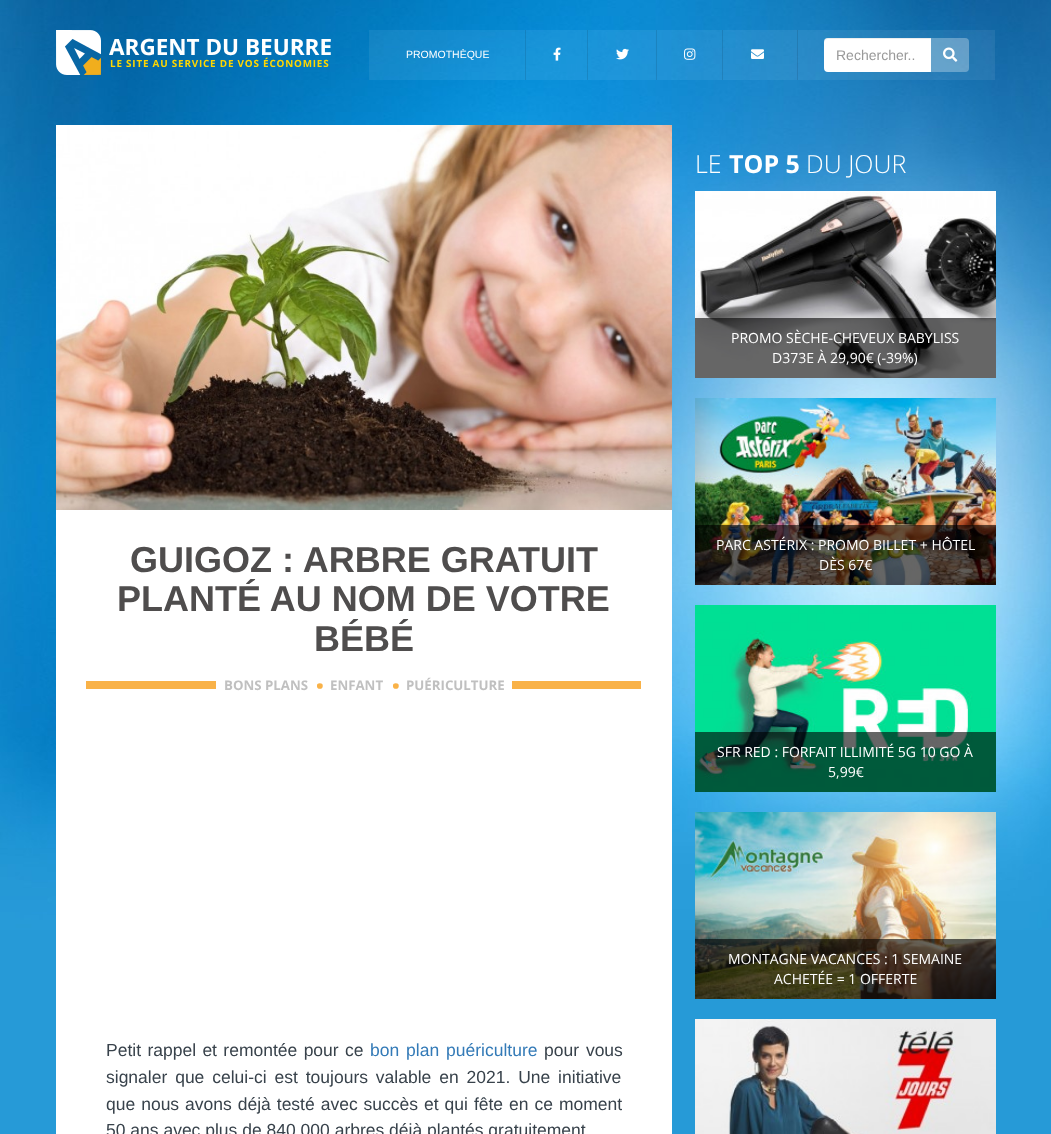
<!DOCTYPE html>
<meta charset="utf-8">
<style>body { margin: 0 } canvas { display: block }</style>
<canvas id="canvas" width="1051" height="1134"></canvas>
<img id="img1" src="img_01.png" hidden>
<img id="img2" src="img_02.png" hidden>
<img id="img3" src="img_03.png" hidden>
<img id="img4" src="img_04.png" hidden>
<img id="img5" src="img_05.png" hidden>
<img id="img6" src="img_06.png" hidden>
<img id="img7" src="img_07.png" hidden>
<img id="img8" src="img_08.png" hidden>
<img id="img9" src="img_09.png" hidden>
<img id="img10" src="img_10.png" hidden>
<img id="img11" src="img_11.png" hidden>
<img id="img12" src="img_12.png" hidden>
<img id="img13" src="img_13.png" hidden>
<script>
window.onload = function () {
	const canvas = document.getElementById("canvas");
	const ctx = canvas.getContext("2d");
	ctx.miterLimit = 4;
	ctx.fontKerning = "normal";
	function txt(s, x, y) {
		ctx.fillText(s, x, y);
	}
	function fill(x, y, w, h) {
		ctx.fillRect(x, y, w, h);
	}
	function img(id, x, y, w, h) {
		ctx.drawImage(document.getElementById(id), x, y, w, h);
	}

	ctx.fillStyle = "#269AD7";
	fill(0, 0, 1051, 1134);
	img("img1", 0, 0, 1051, 930);
	img("img2", 56, 30, 45, 45);
	ctx.fillStyle = "rgba(255, 255, 255, 0.07)";
	fill(369, 30, 157, 50);
	ctx.fillStyle = "rgba(0, 0, 0, 0.1)";
	fill(525, 30, 1, 50);
	ctx.fillStyle = "rgba(255, 255, 255, 0.07)";
	fill(526, 30, 62, 50);
	ctx.fillStyle = "rgba(0, 0, 0, 0.1)";
	fill(587, 30, 1, 50);
	img("img3", 553, 47, 8, 14);
	ctx.fillStyle = "rgba(255, 255, 255, 0.07)";
	fill(588, 30, 69, 50);
	ctx.fillStyle = "rgba(0, 0, 0, 0.1)";
	fill(656, 30, 1, 50);
	img("img4", 616, 48, 13, 12);
	ctx.fillStyle = "rgba(255, 255, 255, 0.07)";
	fill(657, 30, 66, 50);
	ctx.fillStyle = "rgba(0, 0, 0, 0.1)";
	fill(722, 30, 1, 50);
	img("img5", 684, 48, 12, 12);
	ctx.fillStyle = "rgba(255, 255, 255, 0.07)";
	fill(723, 30, 75, 50);
	ctx.fillStyle = "rgba(0, 0, 0, 0.1)";
	fill(797, 30, 1, 50);
	img("img6", 751, 49, 13, 10);
	ctx.fillStyle = "rgba(255, 255, 255, 0.07)";
	fill(798, 30, 197, 50);
	ctx.fillStyle = "#FFFFFF";
	ctx.beginPath();
	ctx.roundRect(824, 38, 107, 34, [4, 0, 0, 4]);
	ctx.fill();
	ctx.fillStyle = "rgba(0, 0, 0, 0.07)";
	ctx.beginPath();
	ctx.moveTo(828, 39);
	ctx.lineTo(931, 39);
	ctx.lineTo(931, 38);
	ctx.lineTo(828, 38);
	ctx.bezierCurveTo(826, 38, 824, 40, 824, 42);
	ctx.lineTo(824, 43);
	ctx.bezierCurveTo(824, 41, 826, 39, 828, 39);
	ctx.closePath();
	ctx.fill();
	ctx.fillStyle = "rgba(255, 255, 255, 0.3)";
	ctx.beginPath();
	ctx.roundRect(931, 38, 38, 34, [0, 4, 4, 0]);
	ctx.fill();
	img("img7", 943, 47, 15, 15);
	ctx.fillStyle = "#FFFFFF";
	fill(56, 510, 616, 624);
	img("img8", 56, 125, 616, 385);
	ctx.fillStyle = "#F9B248";
	fill(86, 681, 555, 8);
	ctx.fillStyle = "#FFFFFF";
	fill(216, 681, 296, 8);
	img("img9", 695, 191, 301, 187);
	ctx.fillStyle = "rgba(0, 0, 0, 0.6)";
	fill(695, 318, 301, 60);
	img("img10", 695, 398, 301, 187);
	fill(695, 525, 301, 60);
	img("img11", 695, 605, 301, 187);
	fill(695, 732, 301, 60);
	img("img12", 695, 812, 301, 187);
	fill(695, 939, 301, 60);
	img("img13", 695, 1019, 301, 115);
	ctx.font = "bold 22.5px Open Sans";
	ctx.fillStyle = "#FFFFFF";
	txt("ARGENT DU BEURRE", 109, 55);
	ctx.letterSpacing = "0.8px";
	ctx.font = "bold 9.9px Open Sans";
	ctx.fillStyle = "#FFD700";
	txt("LE SITE AU SERVICE DE VOS ÉCONOMIES", 110, 67);
	ctx.letterSpacing = "0px";
	ctx.font = "10.5px Liberation Sans";
	ctx.fillStyle = "#FFFFFF";
	txt("PROMOTHÈQUE", 406, 58);
	ctx.font = "14px Liberation Sans";
	ctx.fillStyle = "#999999";
	txt("Rechercher..", 836, 60);
	ctx.font = "bold 36px Liberation Sans";
	ctx.fillStyle = "#4F4D4D";
	txt("GUIGOZ : ARBRE GRATUIT", 130, 572);
	txt("PLANTÉ AU NOM DE VOTRE", 117, 611);
	txt("BÉBÉ", 314, 651);
	ctx.font = "bold 13.25px Open Sans";
	ctx.fillStyle = "#C0C0C0";
	txt("BONS PLANS", 224, 690);
	ctx.font = "bold 34px Open Sans";
	ctx.fillStyle = "#F9B248";
	txt("·", 315, 698);
	ctx.font = "bold 13.25px Open Sans";
	ctx.fillStyle = "#C0C0C0";
	txt("ENFANT", 330, 690);
	ctx.font = "bold 34px Open Sans";
	ctx.fillStyle = "#F9B248";
	txt("·", 391, 698);
	ctx.font = "bold 13.25px Open Sans";
	ctx.fillStyle = "#C0C0C0";
	txt("PUÉRICULTURE", 406, 690);
	ctx.wordSpacing = "1.5px";
	ctx.font = "17.5px Liberation Sans";
	ctx.fillStyle = "#38424B";
	txt("Petit rappel et remontée pour ce", 106, 1056);
	ctx.wordSpacing = "2px";
	ctx.fillStyle = "#337AB7";
	txt("bon plan puériculture", 370, 1056);
	ctx.fillStyle = "#38424B";
	txt("pour vous", 544, 1056);
	ctx.wordSpacing = "3px";
	txt("signaler que celui-ci est toujours valable en 2021. Une initiative", 106, 1083);
	ctx.wordSpacing = "1.1px";
	txt("que nous avons déjà testé avec succès et qui fête en ce moment", 106, 1110);
	ctx.wordSpacing = "0px";
	txt("50 ans avec plus de 840 000 arbres déjà plantés gratuitement", 106, 1136);
	ctx.font = "300 25px Open Sans";
	ctx.fillStyle = "#FFFFFF";
	txt("LE", 695, 173);
	ctx.font = "bold 25px Open Sans";
	txt("TOP 5", 729, 173);
	ctx.font = "300 25px Open Sans";
	txt("DU JOUR", 806, 173);
	ctx.font = "14px Open Sans";
	txt("PROMO SÈCHE-CHEVEUX BABYLISS", 731, 343);
	txt("D373E À 29,90€ (-39%)", 772, 363);
	txt("PARC ASTÉRIX : PROMO BILLET + HÔTEL", 716, 550);
	txt("DÈS 67€", 819, 570);
	txt("SFR RED : FORFAIT ILLIMITÉ 5G 10 GO À", 717, 757);
	txt("5,99€", 828, 777);
	txt("MONTAGNE VACANCES : 1 SEMAINE", 728, 964);
	txt("ACHETÉE = 1 OFFERTE", 774, 984);
};
</script>
